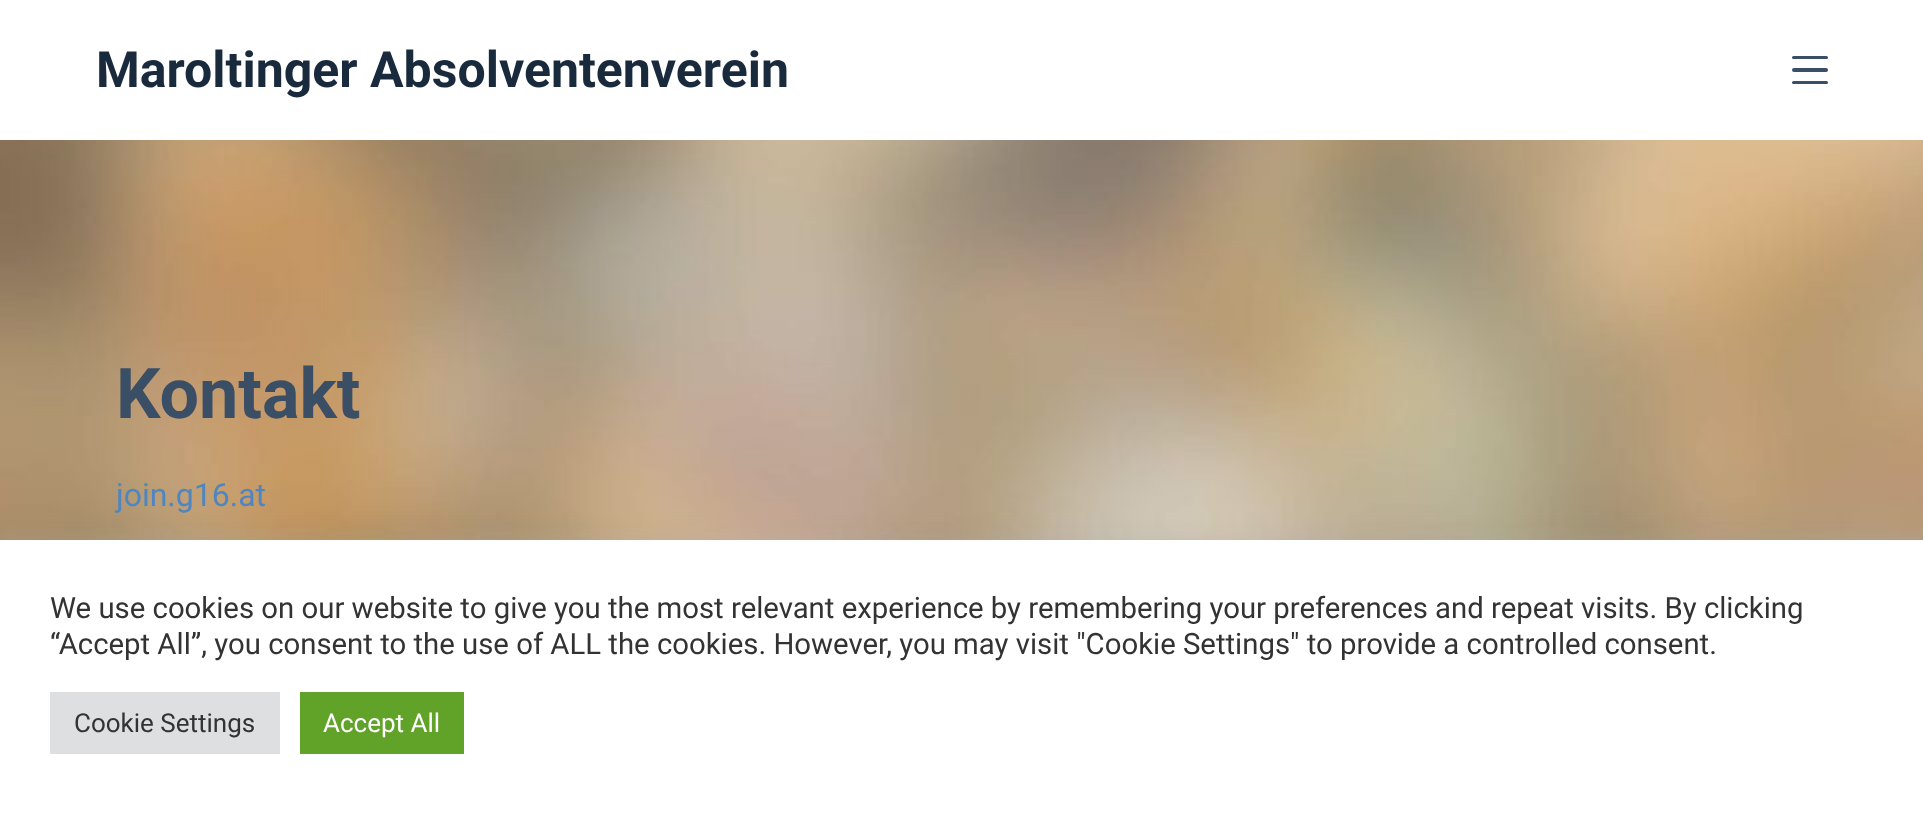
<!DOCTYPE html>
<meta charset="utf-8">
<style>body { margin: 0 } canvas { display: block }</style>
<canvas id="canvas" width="1923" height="813"></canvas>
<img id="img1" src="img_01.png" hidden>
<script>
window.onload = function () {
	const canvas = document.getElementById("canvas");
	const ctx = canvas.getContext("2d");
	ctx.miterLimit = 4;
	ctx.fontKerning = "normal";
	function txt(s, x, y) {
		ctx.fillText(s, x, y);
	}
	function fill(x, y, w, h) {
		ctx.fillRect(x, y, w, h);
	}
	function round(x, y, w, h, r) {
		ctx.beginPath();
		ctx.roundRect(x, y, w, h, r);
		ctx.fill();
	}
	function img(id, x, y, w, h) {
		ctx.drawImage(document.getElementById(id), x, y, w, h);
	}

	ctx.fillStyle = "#FFFFFF";
	fill(0, 0, 1923, 813);
	img("img1", 0, 140, 1923, 400);
	ctx.fillStyle = "#3A4F66";
	round(1792, 56, 36, 3, 1.5);
	round(1792, 68, 36, 4, 2);
	round(1792, 81, 36, 3, 1.5);
	ctx.fillStyle = "rgba(172, 171, 171, 0.3)";
	ctx.filter = "blur(10px)";
	ctx.beginPath();
	ctx.rect(0, 538, 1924, 274);
	ctx.fill();
	ctx.filter = "none";
	ctx.fillStyle = "#FFFFFF";
	fill(0, 540, 1923, 273);
	ctx.fillStyle = "#DEDFE0";
	fill(50, 692, 230, 62);
	ctx.fillStyle = "#61A229";
	fill(300, 692, 164, 62);
	ctx.font = "bold 50px Roboto";
	ctx.fillStyle = "#192A3D";
	txt("Maroltinger Absolventenverein", 96, 87);
	ctx.font = "bold 70px Roboto";
	ctx.fillStyle = "#3A4F66";
	txt("Kontakt", 116, 418);
	ctx.font = "32px Roboto";
	ctx.fillStyle = "#5086BF";
	txt("join.g16.at", 116, 506);
	ctx.font = "29.33px Roboto";
	ctx.fillStyle = "#333333";
	txt("We use cookies on our website to give you the most relevant experience by remembering your preferences and repeat visits. By clicking", 50, 618);
	txt("“Accept All”, you consent to the use of ALL the cookies. However, you may visit \"Cookie Settings\" to provide a controlled consent.", 50, 654);
	ctx.font = "26px Roboto";
	txt("Cookie Settings", 74, 732);
	ctx.fillStyle = "#FFFFFF";
	txt("Accept All", 323, 732);
};
</script>
